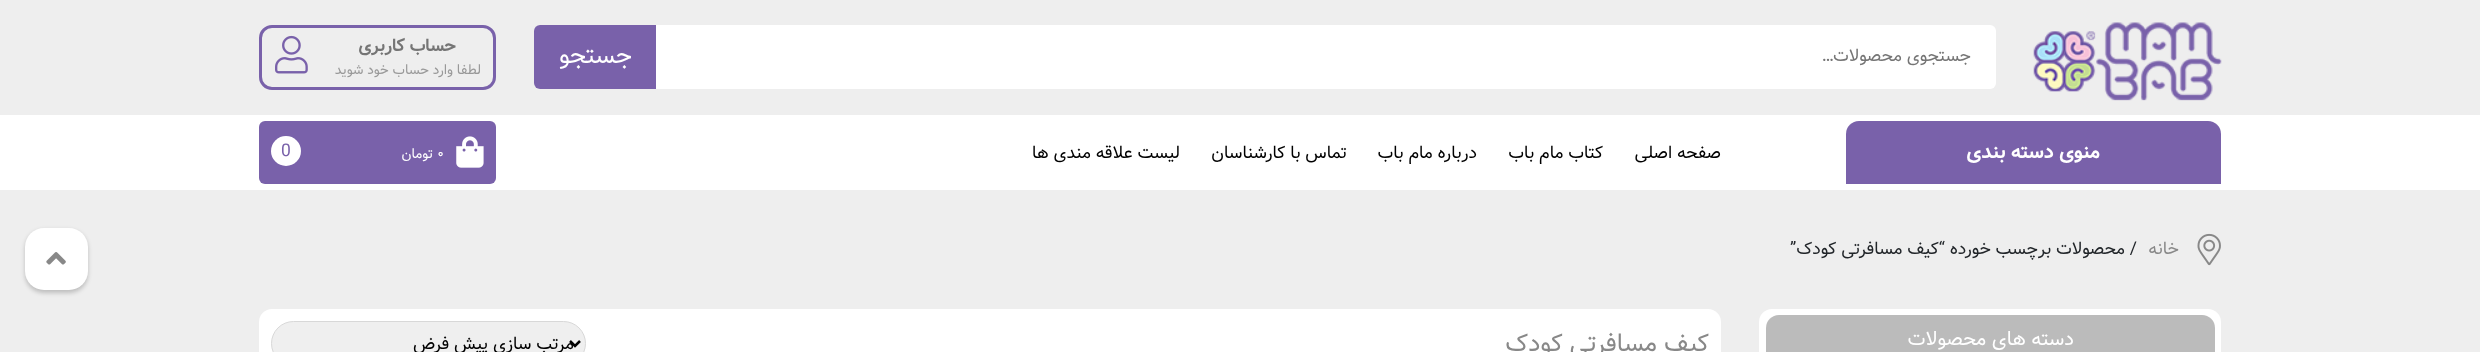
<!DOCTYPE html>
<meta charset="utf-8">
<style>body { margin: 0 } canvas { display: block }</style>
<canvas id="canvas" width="2480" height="352"></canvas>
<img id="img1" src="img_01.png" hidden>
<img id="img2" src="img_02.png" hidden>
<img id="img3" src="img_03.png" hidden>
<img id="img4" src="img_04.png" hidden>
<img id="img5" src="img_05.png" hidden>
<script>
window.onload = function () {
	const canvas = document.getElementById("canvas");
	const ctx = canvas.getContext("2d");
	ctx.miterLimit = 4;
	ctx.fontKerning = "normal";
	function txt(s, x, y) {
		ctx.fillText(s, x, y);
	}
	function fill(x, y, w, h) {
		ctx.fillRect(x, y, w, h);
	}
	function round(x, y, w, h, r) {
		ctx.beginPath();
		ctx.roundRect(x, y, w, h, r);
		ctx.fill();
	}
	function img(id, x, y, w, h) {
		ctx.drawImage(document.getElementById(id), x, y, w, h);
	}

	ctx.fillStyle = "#EEEEEE";
	fill(0, 0, 2480, 352);
	img("img1", 2033, 22, 189, 79);
	ctx.fillStyle = "#FFFFFF";
	round(534, 25, 1462, 64, 6);
	ctx.fillStyle = "#7961AA";
	ctx.beginPath();
	ctx.roundRect(534, 25, 122, 64, [6, 0, 0, 6]);
	ctx.fill();
	ctx.beginPath();
	ctx.roundRect(260.5, 26.5, 234, 62, 11.5);
	ctx.strokeStyle = "#7961AA";
	ctx.lineWidth = 3;
	ctx.stroke();
	img("img2", 275, 35, 33, 39);
	ctx.fillStyle = "#FFFFFF";
	fill(0, 115, 2480, 75);
	ctx.fillStyle = "#7961AA";
	ctx.beginPath();
	ctx.roundRect(1846, 121, 375, 63, [13, 13, 0, 0]);
	ctx.fill();
	round(259, 121, 237, 63, 6);
	img("img3", 456, 136, 28, 32);
	ctx.fillStyle = "#FFFFFF";
	ctx.beginPath();
	ctx.arc(286, 151, 15, 0, Math.PI * 2);
	ctx.fill();
	img("img4", 2197, 233, 24, 33);
	round(1759, 309, 462, 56, 13);
	ctx.fillStyle = "#BBBBBB";
	round(1766, 315, 449, 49, 13);
	ctx.fillStyle = "#FFFFFF";
	round(259, 309, 1462, 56, 13);
	ctx.fillStyle = "#EFEFEF";
	ctx.beginPath();
	ctx.roundRect(271.5, 321.5, 314, 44, 22);
	ctx.fill();
	ctx.strokeStyle = "#D8D8D8";
	ctx.lineWidth = 1;
	ctx.stroke();
	ctx.beginPath();
	ctx.moveTo(570, 341);
	ctx.lineTo(575, 346);
	ctx.lineTo(580, 341);
	ctx.strokeStyle = "#000000";
	ctx.lineWidth = 2.5;
	ctx.stroke();
	ctx.fillStyle = "rgba(0, 0, 0, 0.2)";
	ctx.filter = "blur(2px)";
	ctx.beginPath();
	ctx.roundRect(25, 230, 63, 63, 19);
	ctx.fill();
	ctx.filter = "none";
	ctx.fillStyle = "#FFFFFF";
	round(25, 228, 63, 62, 19);
	img("img5", 46, 252, 20, 13);
	ctx.direction = "rtl";
	ctx.font = "17.5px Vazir";
	ctx.fillStyle = "#757575";
	txt("جستجوی محصولات…", 1971, 61);
	ctx.font = "25px Vazir";
	ctx.fillStyle = "#FFFFFF";
	txt("جستجو", 632, 63);
	ctx.font = "bold 17.5px Vazir";
	ctx.fillStyle = "#757575";
	txt("حساب کاربری", 456, 51);
	ctx.font = "13.75px Vazir";
	ctx.fillStyle = "#999999";
	txt("لطفا وارد حساب خود شوید", 481, 74);
	ctx.font = "bold 20px Vazir";
	ctx.fillStyle = "#FFFFFF";
	txt("منوی دسته بندی", 2100, 158);
	ctx.font = "17.5px Vazir";
	ctx.fillStyle = "#000000";
	txt("صفحه اصلی", 1721, 158);
	txt("کتاب مام باب", 1603, 158);
	txt("درباره مام باب", 1477, 158);
	txt("تماس با کارشناسان", 1347, 158);
	txt("لیست علاقه مندی ها", 1180, 158);
	ctx.direction = "ltr";
	ctx.font = "13.75px Vazir";
	ctx.fillStyle = "#FFFFFF";
	txt("۰", 437, 158);
	ctx.direction = "rtl";
	txt("تومان", 433, 158);
	ctx.direction = "ltr";
	ctx.font = "17.5px Vazir";
	ctx.fillStyle = "#7961AA";
	txt("0", 281, 156);
	ctx.direction = "rtl";
	ctx.fillStyle = "#888888";
	txt("خانه", 2179, 254);
	ctx.fillStyle = "#212529";
	txt("/ محصولات برچسب خورده", 2137, 254);
	txt("“کیف مسافرتی کودک”", 1945, 254);
	ctx.font = "20px Vazir";
	ctx.fillStyle = "#FFFFFF";
	txt("دسته های محصولات", 2074, 345);
	ctx.font = "25px Vazir";
	ctx.fillStyle = "#888888";
	txt("کیف مسافرتی کودک", 1709, 351);
	ctx.font = "17.5px Vazir";
	ctx.fillStyle = "#000000";
	txt("مرتب سازی پیش فرض", 574, 349);
};
</script>
